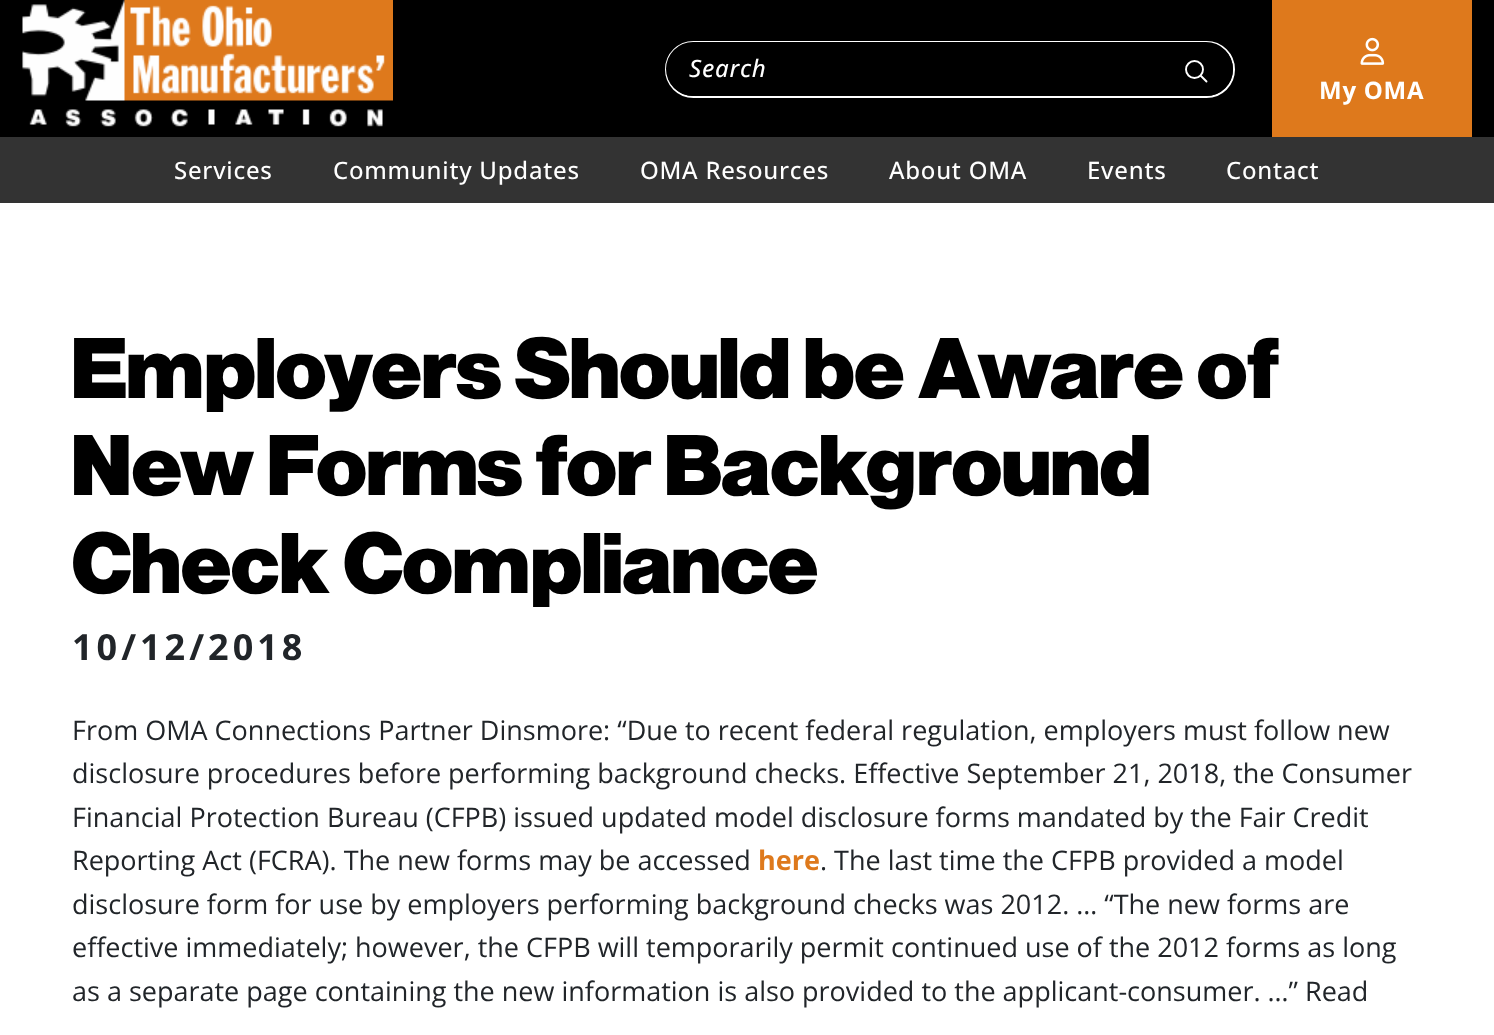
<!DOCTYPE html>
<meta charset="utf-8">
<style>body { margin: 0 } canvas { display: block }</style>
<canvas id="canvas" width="1494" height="1035"></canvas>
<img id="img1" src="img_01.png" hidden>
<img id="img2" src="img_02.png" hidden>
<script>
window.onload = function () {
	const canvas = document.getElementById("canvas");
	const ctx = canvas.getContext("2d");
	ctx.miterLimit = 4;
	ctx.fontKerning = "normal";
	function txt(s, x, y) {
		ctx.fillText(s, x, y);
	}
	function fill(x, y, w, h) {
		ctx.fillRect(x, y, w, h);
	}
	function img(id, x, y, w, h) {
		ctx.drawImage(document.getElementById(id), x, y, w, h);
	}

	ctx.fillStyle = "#FFFFFF";
	fill(0, 0, 1494, 1035);
	ctx.fillStyle = "#000000";
	fill(0, 0, 1494, 137);
	img("img1", 22, 0, 371, 127);
	ctx.beginPath();
	ctx.roundRect(666, 42, 568, 55, 27.5);
	ctx.strokeStyle = "#FFFFFF";
	ctx.lineWidth = 2;
	ctx.stroke();
	ctx.beginPath();
	ctx.roundRect(666, 42, 492, 54, [27, 0, 0, 27]);
	ctx.fill();
	ctx.beginPath();
	ctx.roundRect(1158, 42, 75, 54, [0, 27, 27, 0]);
	ctx.fill();
	ctx.beginPath();
	ctx.arc(1194.5, 69.5, 8.5, 0, Math.PI * 2);
	ctx.lineWidth = 1.9;
	ctx.stroke();
	ctx.beginPath();
	ctx.moveTo(1201, 76);
	ctx.lineTo(1206.5, 81.5);
	ctx.lineCap = "round";
	ctx.stroke();
	ctx.fillStyle = "#DE791C";
	fill(1272, 0, 200, 137);
	img("img2", 1360, 37, 25, 28);
	ctx.fillStyle = "#333333";
	fill(0, 137, 1494, 66);
	ctx.letterSpacing = "0.75px";
	ctx.font = "italic 500 24px Open Sans";
	ctx.fillStyle = "#FFFFFF";
	txt("Search", 689, 77);
	ctx.font = "bold 24px Open Sans";
	txt("My OMA", 1319, 99);
	ctx.font = "500 24px Open Sans";
	txt("Services", 174, 179);
	txt("Community Updates", 333, 179);
	txt("OMA Resources", 640, 179);
	txt("About OMA", 889, 179);
	txt("Events", 1087, 179);
	txt("Contact", 1226, 179);
	ctx.letterSpacing = "0px";
	ctx.font = "90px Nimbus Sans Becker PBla";
	ctx.fillStyle = "#000000";
	txt("Employers Should be Aware of", 72, 398);
	txt("New Forms for Background", 72, 495);
	txt("Check Compliance", 72, 593);
	ctx.letterSpacing = "4px";
	ctx.font = "bold 36px Open Sans";
	ctx.fillStyle = "#212529";
	txt("10/12/2018", 72, 660);
	ctx.letterSpacing = "0px";
	ctx.font = "27px Open Sans";
	txt("From OMA Connections Partner Dinsmore: “Due to recent federal regulation, employers must follow new", 72, 740);
	txt("disclosure procedures before performing background checks. Effective September 21, 2018, the Consumer", 72, 783);
	txt("Financial Protection Bureau (CFPB) issued updated model disclosure forms mandated by the Fair Credit", 72, 827);
	txt("Reporting Act (FCRA). The new forms may be accessed", 72, 870);
	ctx.font = "bold 27px Open Sans";
	ctx.fillStyle = "#DE791C";
	txt("here", 758, 870);
	ctx.font = "27px Open Sans";
	ctx.fillStyle = "#212529";
	txt(". The last time the CFPB provided a model", 820, 870);
	txt("disclosure form for use by employers performing background checks was 2012. … “The new forms are", 72, 914);
	txt("effective immediately; however, the CFPB will temporarily permit continued use of the 2012 forms as long", 72, 957);
	txt("as a separate page containing the new information is also provided to the applicant-consumer. …” Read", 72, 1001);
};
</script>
